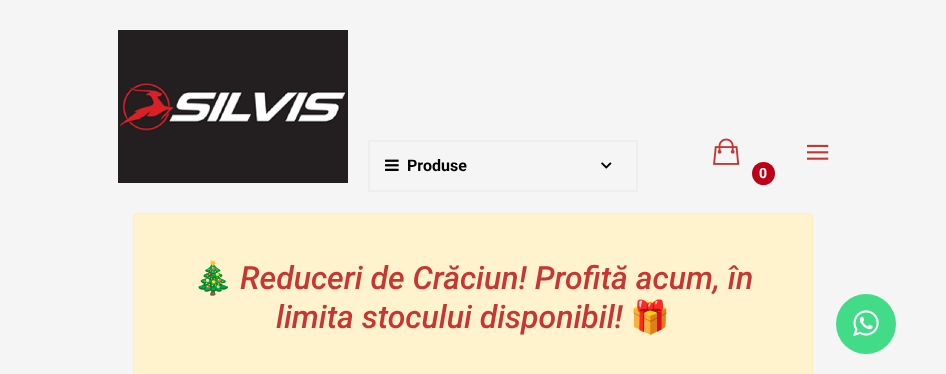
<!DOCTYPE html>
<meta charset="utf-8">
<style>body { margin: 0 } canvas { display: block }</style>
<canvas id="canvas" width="946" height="374"></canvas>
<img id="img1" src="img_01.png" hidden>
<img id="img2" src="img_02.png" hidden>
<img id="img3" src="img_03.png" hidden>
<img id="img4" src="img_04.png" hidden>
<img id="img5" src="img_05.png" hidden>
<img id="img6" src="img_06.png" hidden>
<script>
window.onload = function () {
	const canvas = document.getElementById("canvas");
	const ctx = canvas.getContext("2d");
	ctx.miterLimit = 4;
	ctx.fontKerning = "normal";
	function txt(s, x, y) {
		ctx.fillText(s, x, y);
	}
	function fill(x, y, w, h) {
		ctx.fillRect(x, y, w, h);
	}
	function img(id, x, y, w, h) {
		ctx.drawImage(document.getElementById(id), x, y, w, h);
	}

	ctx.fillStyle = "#F5F5F5";
	fill(0, 0, 946, 374);
	img("img1", 118, 30, 230, 153);
	ctx.strokeStyle = "#EEEEEE";
	ctx.lineWidth = 2;
	ctx.strokeRect(369, 141, 268, 50);
	img("img2", 385, 159, 14, 12);
	img("img3", 601, 162, 11, 7);
	img("img4", 807, 144, 22, 16);
	img("img5", 713, 138, 27, 27);
	ctx.fillStyle = "#BD0018";
	ctx.beginPath();
	ctx.arc(763.5, 173.5, 11.5, 0, Math.PI * 2);
	ctx.fill();
	ctx.fillStyle = "#FFF3CD";
	ctx.beginPath();
	ctx.roundRect(133.5, 213.5, 679, 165, 3.5);
	ctx.fill();
	ctx.strokeStyle = "#FFEEBA";
	ctx.lineWidth = 1;
	ctx.stroke();
	ctx.fillStyle = "#42DB87";
	ctx.beginPath();
	ctx.arc(866, 324, 30, 0, Math.PI * 2);
	ctx.fill();
	img("img6", 853, 310, 26, 27);
	ctx.font = "bold 16px Roboto";
	ctx.fillStyle = "#000000";
	txt("Produse", 407, 171);
	ctx.font = "bold 14px Roboto";
	ctx.fillStyle = "#FFFFFF";
	txt("0", 759, 178);
	ctx.font = "32px Noto Color Emoji";
	ctx.fillStyle = "#C73632";
	txt("🎄", 193, 289);
	ctx.font = "italic 500 32px Roboto";
	txt("Reduceri de Crăciun! Profită acum, în", 240, 289);
	txt("limita stocului disponibil!", 276, 328);
	ctx.font = "32px Noto Color Emoji";
	txt("🎁", 630, 328);
};
</script>
